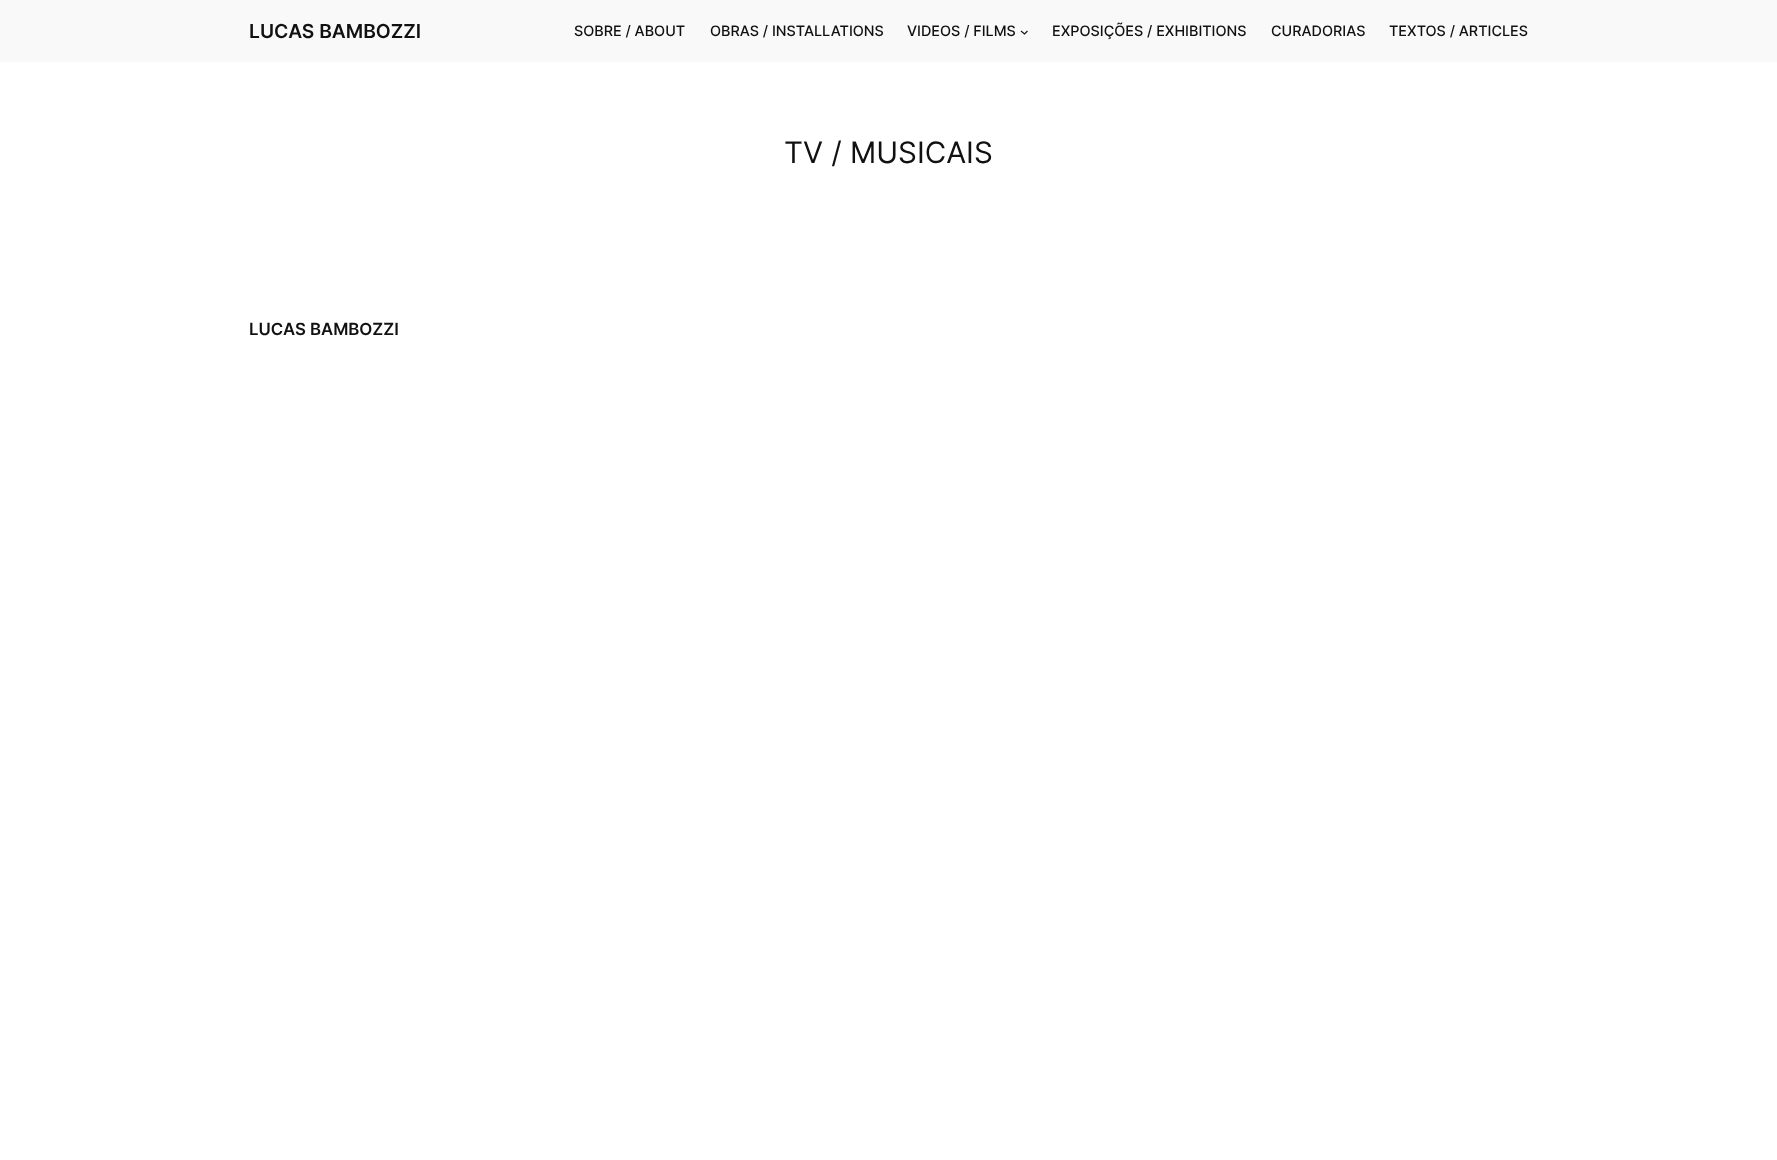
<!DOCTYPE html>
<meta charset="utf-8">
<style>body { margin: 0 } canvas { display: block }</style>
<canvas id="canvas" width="1777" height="1160"></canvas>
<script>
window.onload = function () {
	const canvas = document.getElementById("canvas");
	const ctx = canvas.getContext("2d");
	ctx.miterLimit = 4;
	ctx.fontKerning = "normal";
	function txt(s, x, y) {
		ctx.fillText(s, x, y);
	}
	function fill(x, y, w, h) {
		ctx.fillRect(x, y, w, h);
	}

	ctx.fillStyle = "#FFFFFF";
	fill(0, 0, 1777, 1160);
	ctx.fillStyle = "#F9F9F9";
	fill(0, 0, 1777, 62);
	ctx.beginPath();
	ctx.moveTo(1021, 31);
	ctx.lineTo(1024.5, 34);
	ctx.lineTo(1027.5, 31);
	ctx.strokeStyle = "#111111";
	ctx.lineWidth = 1.1;
	ctx.stroke();
	ctx.font = "600 19.25px Inter";
	ctx.fillStyle = "#111111";
	txt("LUCAS BAMBOZZI", 249, 38);
	ctx.font = "500 14.4px Inter";
	txt("SOBRE / ABOUT", 574, 36);
	txt("OBRAS / INSTALLATIONS", 710, 36);
	txt("VIDEOS / FILMS", 907, 36);
	txt("EXPOSIÇÕES / EXHIBITIONS", 1052, 36);
	txt("CURADORIAS", 1271, 36);
	txt("TEXTOS / ARTICLES", 1389, 36);
	ctx.font = "29.5px Inter";
	txt("TV / MUSICAIS", 784, 163);
	ctx.font = "600 16.75px Inter";
	txt("LUCAS BAMBOZZI", 249, 335);
};
</script>
